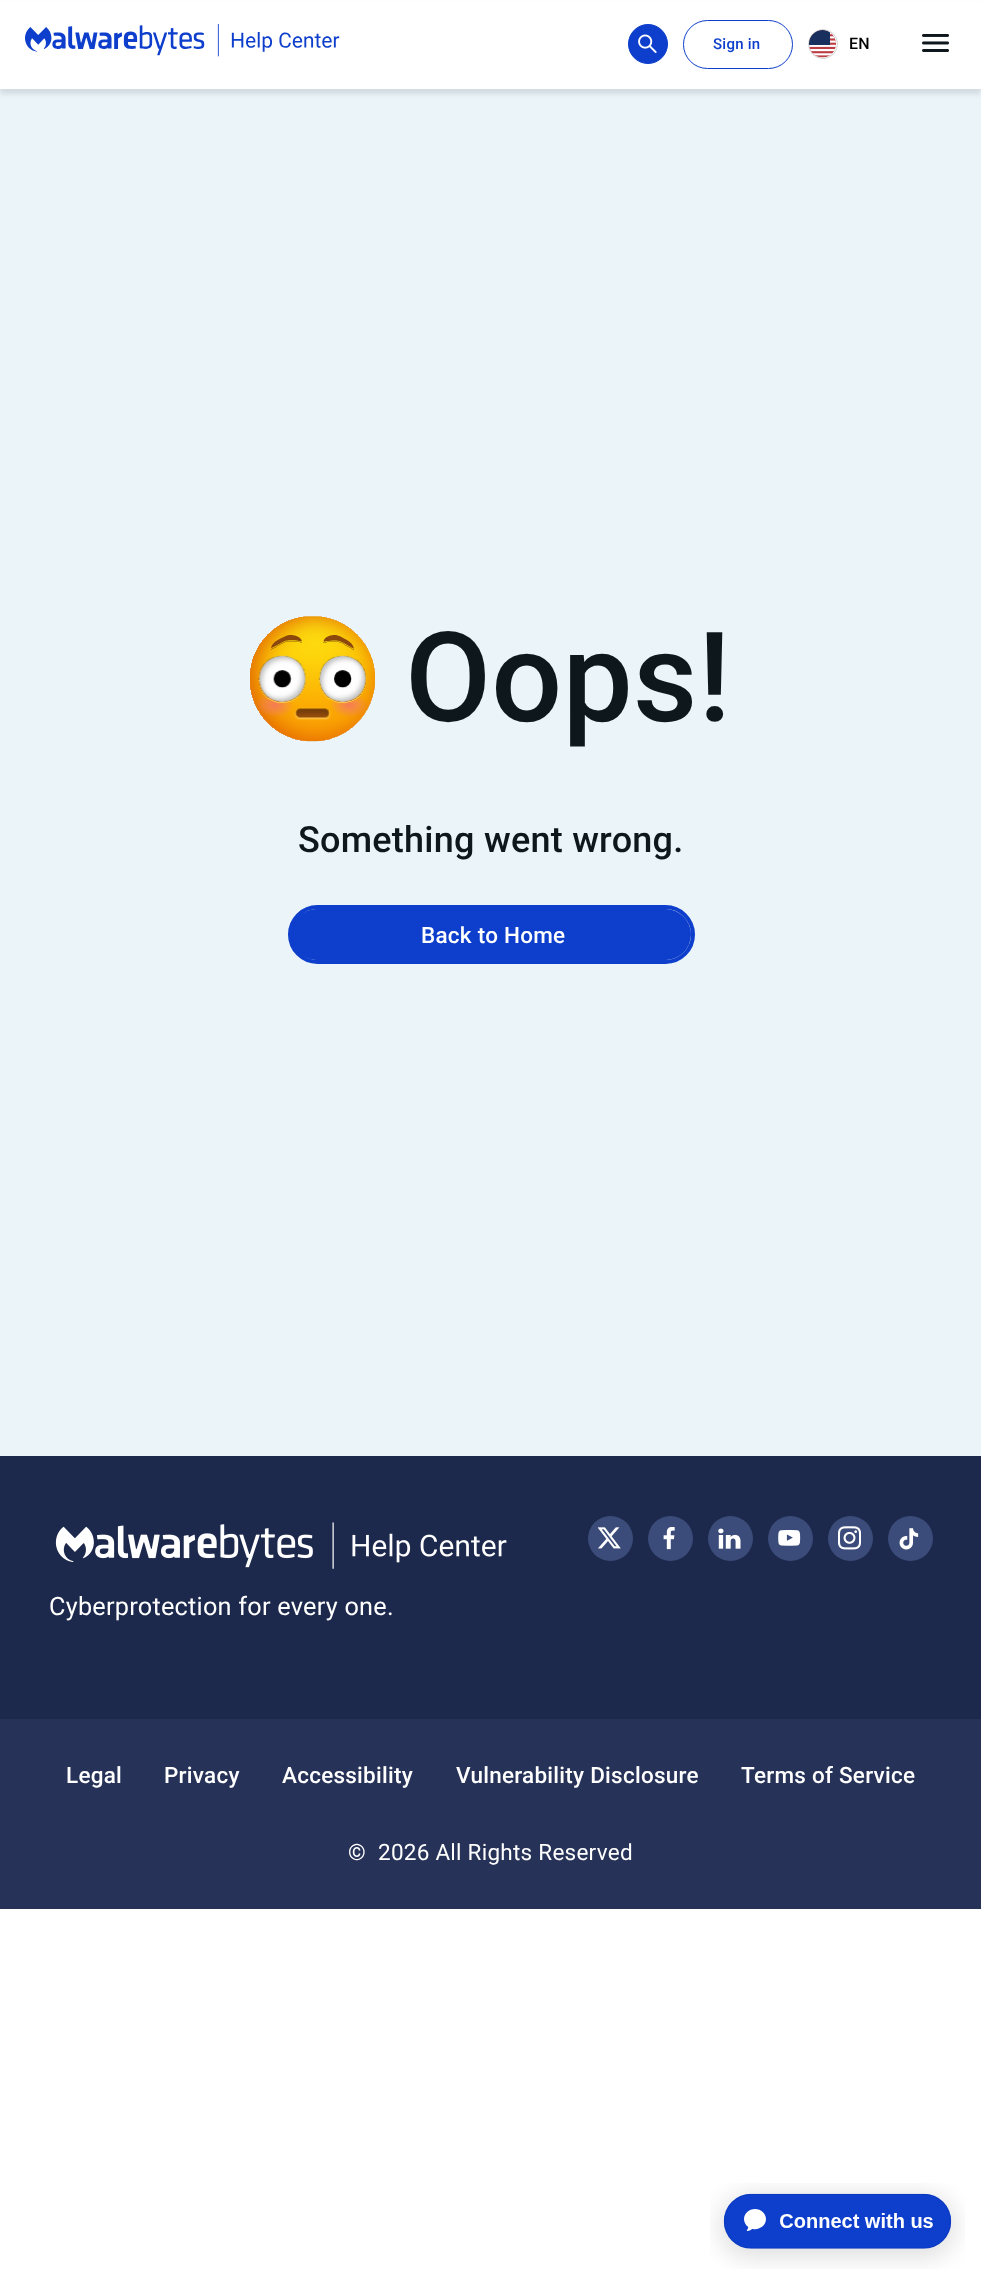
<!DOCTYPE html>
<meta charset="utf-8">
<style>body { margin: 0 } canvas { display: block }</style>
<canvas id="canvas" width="981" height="2278"></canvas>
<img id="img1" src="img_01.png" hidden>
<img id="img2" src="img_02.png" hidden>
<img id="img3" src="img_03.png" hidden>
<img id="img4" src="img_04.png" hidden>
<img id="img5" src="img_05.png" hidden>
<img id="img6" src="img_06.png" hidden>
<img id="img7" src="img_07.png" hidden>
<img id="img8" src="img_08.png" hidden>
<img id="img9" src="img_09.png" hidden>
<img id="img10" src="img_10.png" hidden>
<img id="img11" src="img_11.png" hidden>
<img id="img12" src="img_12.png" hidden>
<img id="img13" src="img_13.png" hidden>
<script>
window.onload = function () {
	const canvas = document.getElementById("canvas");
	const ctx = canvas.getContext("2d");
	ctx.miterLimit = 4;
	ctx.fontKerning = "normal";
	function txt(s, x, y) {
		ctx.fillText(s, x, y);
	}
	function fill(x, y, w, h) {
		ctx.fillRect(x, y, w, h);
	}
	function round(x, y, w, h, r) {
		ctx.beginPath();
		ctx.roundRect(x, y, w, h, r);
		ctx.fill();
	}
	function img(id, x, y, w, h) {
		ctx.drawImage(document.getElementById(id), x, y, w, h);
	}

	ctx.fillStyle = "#FFFFFF";
	fill(0, 0, 981, 2278);
	ctx.fillStyle = "#EAF4F9";
	fill(0, 89, 981, 1367);
	ctx.fillStyle = "rgba(0, 0, 0, 0.1)";
	ctx.filter = "blur(2.5px)";
	ctx.beginPath();
	ctx.rect(0, 5, 981, 89);
	ctx.fill();
	ctx.filter = "none";
	ctx.fillStyle = "#FFFFFF";
	fill(0, 2, 981, 87);
	img("img1", 25, 24, 315, 33);
	ctx.fillStyle = "#0D3ECC";
	ctx.beginPath();
	ctx.arc(648, 44, 19.5, 0, Math.PI * 2);
	ctx.fill();
	ctx.strokeStyle = "#0D3ECC";
	ctx.stroke();
	img("img2", 638, 34, 19, 19);
	ctx.beginPath();
	ctx.roundRect(683.5, 20.5, 109, 48, 24);
	ctx.stroke();
	ctx.beginPath();
	ctx.arc(823, 44, 14.5, 0, Math.PI * 2);
	ctx.strokeStyle = "#D3D3D3";
	ctx.stroke();
	img("img3", 809, 30, 27, 28);
	img("img4", 922, 34, 27, 18);
	img("img5", 250, 616, 125, 126);
	round(291, 909, 400, 51, 25.5);
	ctx.beginPath();
	ctx.roundRect(290, 907, 403, 55, 27.5);
	ctx.strokeStyle = "#0D3ECC";
	ctx.lineWidth = 4;
	ctx.stroke();
	ctx.fillStyle = "#1C294C";
	fill(0, 1456, 981, 263);
	ctx.fillStyle = "#3C4C7A";
	ctx.beginPath();
	ctx.arc(610.5, 1538.5, 22.5, 0, Math.PI * 2);
	ctx.fill();
	img("img6", 598, 1527, 23, 22);
	ctx.beginPath();
	ctx.arc(670.5, 1538.5, 22.5, 0, Math.PI * 2);
	ctx.fill();
	img("img7", 663, 1526, 12, 24);
	ctx.beginPath();
	ctx.arc(730.5, 1538.5, 22.5, 0, Math.PI * 2);
	ctx.fill();
	img("img8", 718, 1528, 23, 21);
	ctx.beginPath();
	ctx.arc(790.5, 1538.5, 22.5, 0, Math.PI * 2);
	ctx.fill();
	img("img9", 778, 1530, 23, 16);
	ctx.beginPath();
	ctx.arc(850.5, 1538.5, 22.5, 0, Math.PI * 2);
	ctx.fill();
	img("img10", 838, 1526, 23, 24);
	ctx.beginPath();
	ctx.arc(910.5, 1538.5, 22.5, 0, Math.PI * 2);
	ctx.fill();
	img("img11", 899, 1528, 20, 22);
	img("img12", 55, 1522, 452, 47);
	ctx.fillStyle = "#263257";
	fill(0, 1719, 981, 190);
	img("img13", 710, 2183, 255, 86);
	ctx.letterSpacing = "0.25px";
	ctx.font = "500 15px Roboto";
	ctx.fillStyle = "#0D3ECC";
	txt("Sign in", 713, 49);
	ctx.font = "500 16px Roboto";
	ctx.fillStyle = "#000000";
	txt("EN", 849, 49);
	ctx.font = "500 125px Roboto";
	ctx.fillStyle = "#0D171C";
	txt("Oops!", 405, 721);
	ctx.font = "500 36px Roboto";
	txt("Something went wrong.", 298, 852);
	ctx.font = "500 22.5px Roboto";
	ctx.fillStyle = "#FFFFFF";
	txt("Back to Home", 421, 943);
	ctx.font = "25.25px Roboto";
	txt("Cyberprotection for every one.", 49, 1615);
	ctx.font = "500 22.5px Roboto";
	txt("Legal", 66, 1783);
	txt("Privacy", 164, 1783);
	txt("Accessibility", 282, 1783);
	txt("Vulnerability Disclosure", 456, 1783);
	txt("Terms of Service", 741, 1783);
	ctx.font = "22.5px Roboto";
	txt("©", 348, 1860);
	txt("2026 All Rights Reserved", 378, 1860);
};
</script>
